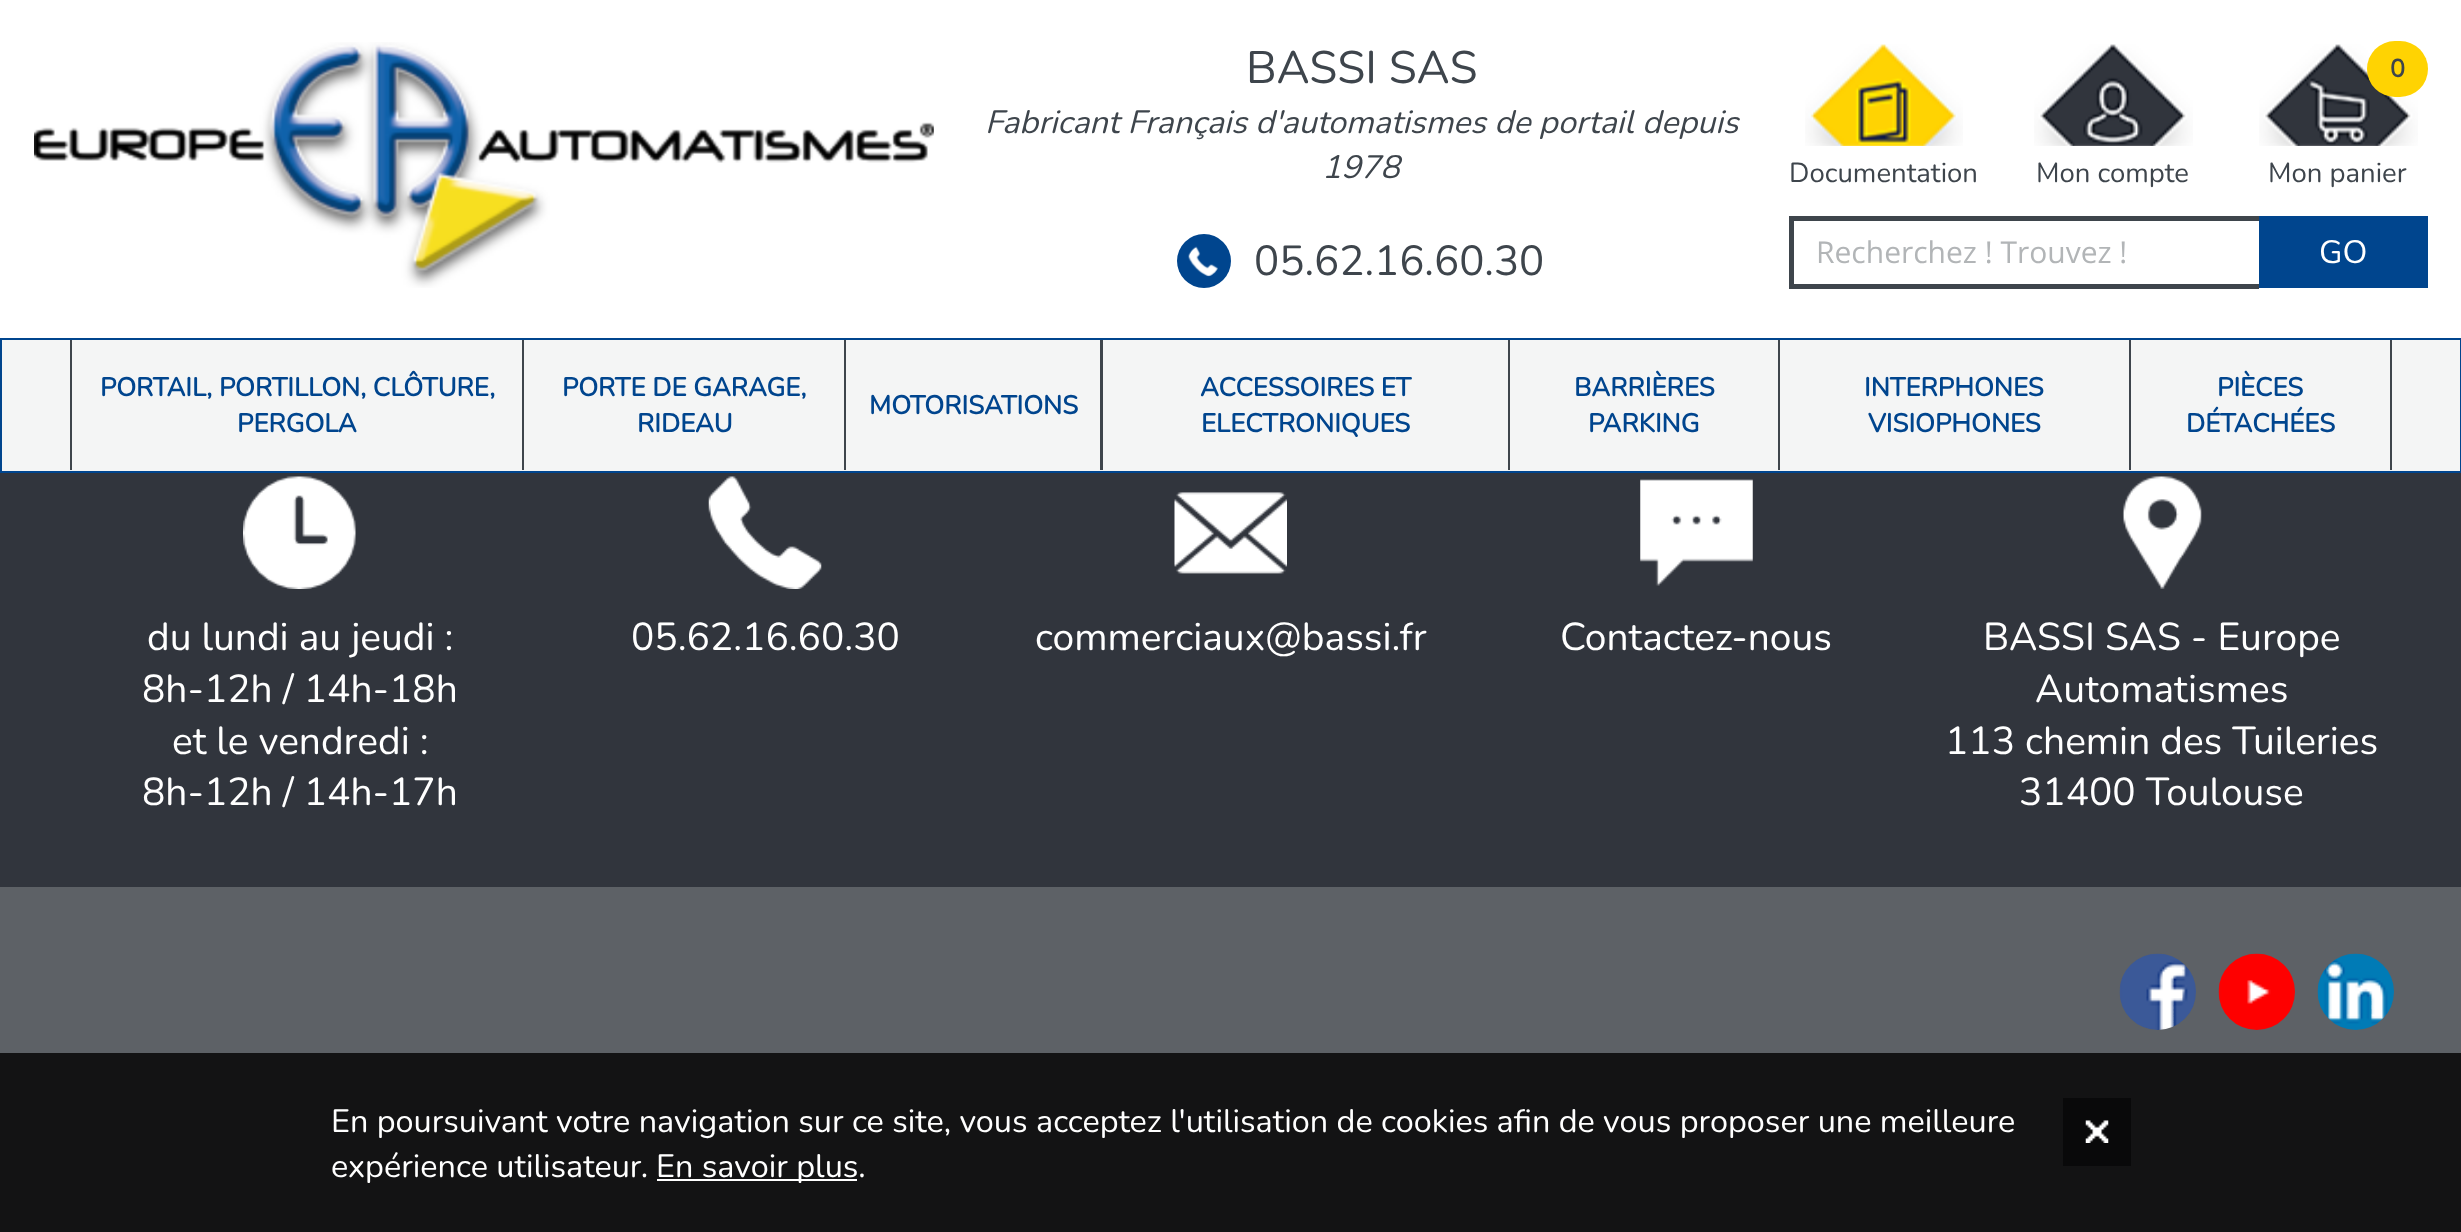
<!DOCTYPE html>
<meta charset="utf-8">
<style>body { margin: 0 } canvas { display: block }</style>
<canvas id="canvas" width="2461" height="1232"></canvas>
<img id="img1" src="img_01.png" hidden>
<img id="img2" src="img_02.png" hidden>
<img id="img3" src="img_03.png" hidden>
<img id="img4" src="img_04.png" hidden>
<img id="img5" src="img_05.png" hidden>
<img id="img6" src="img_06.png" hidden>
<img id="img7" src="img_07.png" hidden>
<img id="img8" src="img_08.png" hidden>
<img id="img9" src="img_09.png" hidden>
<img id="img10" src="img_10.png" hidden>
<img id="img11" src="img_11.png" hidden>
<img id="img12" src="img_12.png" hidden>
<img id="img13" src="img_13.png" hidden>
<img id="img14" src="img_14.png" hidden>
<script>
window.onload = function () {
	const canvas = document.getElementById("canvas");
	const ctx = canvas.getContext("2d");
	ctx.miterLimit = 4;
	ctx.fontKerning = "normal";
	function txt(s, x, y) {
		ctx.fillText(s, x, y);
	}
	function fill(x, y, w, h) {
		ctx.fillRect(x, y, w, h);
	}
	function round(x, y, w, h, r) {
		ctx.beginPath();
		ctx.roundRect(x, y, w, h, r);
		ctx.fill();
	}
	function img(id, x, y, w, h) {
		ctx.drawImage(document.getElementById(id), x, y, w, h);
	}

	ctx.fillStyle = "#5D6166";
	fill(0, 0, 2461, 1232);
	ctx.fillStyle = "#131314";
	fill(0, 1053, 2461, 179);
	ctx.fillStyle = "#FFFFFF";
	fill(0, 0, 2461, 338);
	img("img1", 34, 42, 900, 246);
	ctx.fillStyle = "#00458E";
	ctx.beginPath();
	ctx.arc(1204, 261, 27, 0, Math.PI * 2);
	ctx.fill();
	img("img2", 1188, 246, 30, 31);
	img("img3", 1805, 44, 158, 102);
	img("img4", 2034, 44, 159, 102);
	img("img5", 2259, 44, 159, 102);
	ctx.fillStyle = "#FFD302";
	round(2367, 41, 61, 56, 28);
	ctx.fillStyle = "#3E454C";
	fill(1789, 216, 470, 5);
	fill(1789, 284, 470, 5);
	fill(1789, 216, 5, 72);
	ctx.fillStyle = "#00458E";
	fill(2259, 216, 169, 72);
	ctx.fillStyle = "#F4F5F5";
	ctx.beginPath();
	ctx.rect(1, 339, 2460, 133);
	ctx.fill();
	ctx.strokeStyle = "#00458E";
	ctx.lineWidth = 2;
	ctx.stroke();
	ctx.fillStyle = "#3E454C";
	fill(70, 340, 2322, 130);
	ctx.fillStyle = "#F4F5F5";
	fill(72, 340, 450, 130);
	fill(524, 340, 320, 130);
	fill(846, 340, 254, 130);
	fill(1103, 340, 405, 130);
	fill(1510, 340, 268, 130);
	fill(1780, 340, 349, 130);
	fill(2131, 340, 259, 130);
	ctx.fillStyle = "#31353D";
	fill(0, 473, 2461, 414);
	img("img6", 243, 476, 113, 113);
	img("img7", 708, 476, 114, 113);
	img("img8", 1174, 492, 113, 82);
	img("img9", 1640, 479, 113, 107);
	img("img10", 2122, 476, 80, 113);
	img("img11", 2119, 953, 77, 77);
	img("img12", 2218, 953, 77, 77);
	img("img13", 2317, 953, 77, 77);
	ctx.fillStyle = "#FFFFFF";
	fill(657, 1179, 200, 2);
	ctx.fillStyle = "rgba(0, 0, 0, 0.5)";
	fill(2063, 1098, 68, 68);
	img("img14", 2085, 1120, 24, 23);
	ctx.font = "200 45.5px Nunito";
	ctx.fillStyle = "#3E454C";
	txt("BASSI SAS", 1246, 83);
	ctx.font = "italic 200 32.4px Nunito";
	txt("Fabricant Français d'automatismes de portail depuis", 985, 133);
	txt("1978", 1322, 178);
	ctx.font = "200 42px Nunito";
	txt("05.62.16.60.30", 1254, 275);
	ctx.font = "200 27.5px Nunito";
	txt("Documentation", 1789, 182);
	txt("Mon compte", 2036, 182);
	ctx.font = "bold 25px Nunito";
	txt("0", 2390, 77);
	ctx.font = "200 27.5px Nunito";
	txt("Mon panier", 2268, 182);
	ctx.font = "30px Open Sans";
	ctx.fillStyle = "#B2B5B7";
	txt("Recherchez ! Trouvez !", 1816, 263);
	ctx.font = "200 32.4px Nunito";
	ctx.fillStyle = "#FFFFFF";
	txt("GO", 2319, 263);
	ctx.font = "bold 25.9px Nunito";
	ctx.fillStyle = "#00458E";
	txt("PORTAIL, PORTILLON, CLÔTURE,", 100, 396);
	txt("PERGOLA", 237, 432);
	txt("PORTE DE GARAGE,", 562, 396);
	txt("RIDEAU", 637, 432);
	txt("MOTORISATIONS", 869, 414);
	txt("ACCESSOIRES ET", 1200, 396);
	txt("ELECTRONIQUES", 1201, 432);
	txt("BARRIÈRES", 1574, 396);
	txt("PARKING", 1588, 432);
	txt("INTERPHONES", 1864, 396);
	txt("VISIOPHONES", 1868, 432);
	txt("PIÈCES", 2217, 396);
	txt("DÉTACHÉES", 2186, 432);
	ctx.font = "200 38.9px Nunito";
	ctx.fillStyle = "#FFFFFF";
	txt("du lundi au jeudi :", 147, 650);
	txt("8h-12h / 14h-18h", 142, 702);
	txt("et le vendredi :", 172, 754);
	txt("8h-12h / 14h-17h", 142, 805);
	txt("05.62.16.60.30", 631, 650);
	txt("commerciaux@bassi.fr", 1035, 650);
	txt("Contactez-nous", 1560, 650);
	txt("BASSI SAS - Europe", 1983, 650);
	txt("Automatismes", 2035, 702);
	txt("113 chemin des Tuileries", 1945, 754);
	txt("31400 Toulouse", 2019, 805);
	ctx.font = "200 32.4px Nunito";
	txt("En poursuivant votre navigation sur ce site, vous acceptez l'utilisation de cookies afin de vous proposer une meilleure", 331, 1132);
	txt("expérience utilisateur.", 331, 1177);
	txt("En savoir plus.", 656, 1177);
};
</script>
